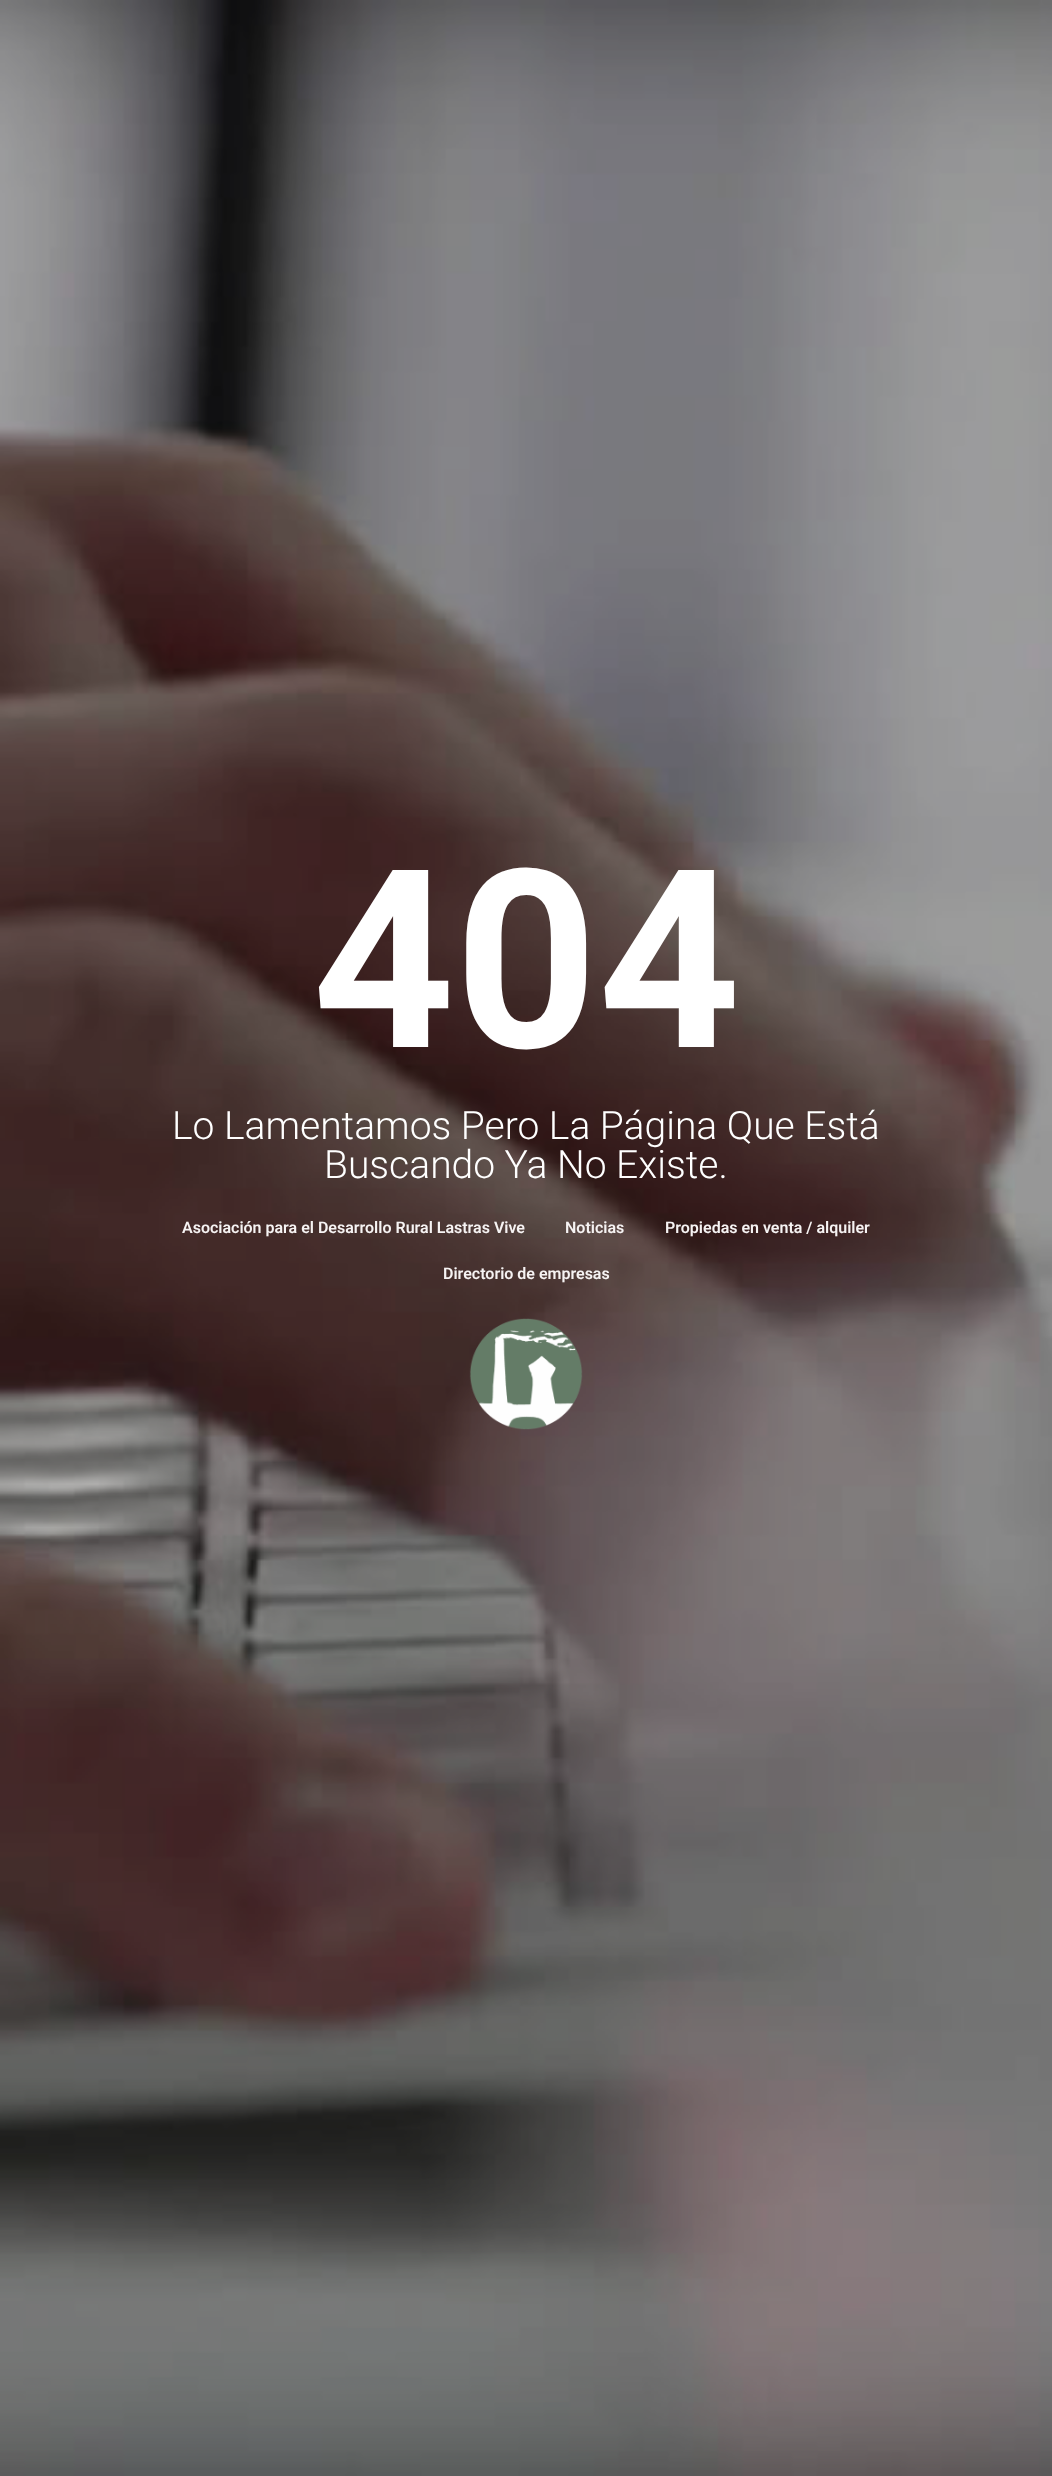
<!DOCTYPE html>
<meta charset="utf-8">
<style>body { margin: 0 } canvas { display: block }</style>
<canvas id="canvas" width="1052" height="2476"></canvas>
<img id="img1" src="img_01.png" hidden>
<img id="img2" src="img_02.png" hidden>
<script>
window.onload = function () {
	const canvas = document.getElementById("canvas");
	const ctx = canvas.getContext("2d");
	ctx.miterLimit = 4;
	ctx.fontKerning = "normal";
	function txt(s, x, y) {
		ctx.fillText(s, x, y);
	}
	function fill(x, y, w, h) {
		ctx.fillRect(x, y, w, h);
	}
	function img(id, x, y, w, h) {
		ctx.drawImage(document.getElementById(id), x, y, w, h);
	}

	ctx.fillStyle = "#FFFFFF";
	fill(0, 0, 1052, 2476);
	img("img1", 0, 0, 1052, 2476);
	img("img2", 469, 1318, 114, 112);
	ctx.font = "bold 249px Roboto";
	txt("404", 312, 1047);
	ctx.font = "300 39px Roboto";
	txt("Lo Lamentamos Pero La Página Que Está", 172, 1139);
	txt("Buscando Ya No Existe.", 324, 1178);
	ctx.font = "600 16px Roboto";
	ctx.fillStyle = "#F6F3F3";
	txt("Asociación para el Desarrollo Rural Lastras Vive", 182, 1233);
	txt("Noticias", 565, 1233);
	txt("Propiedas en venta / alquiler", 665, 1233);
	txt("Directorio de empresas", 443, 1279);
};
</script>
